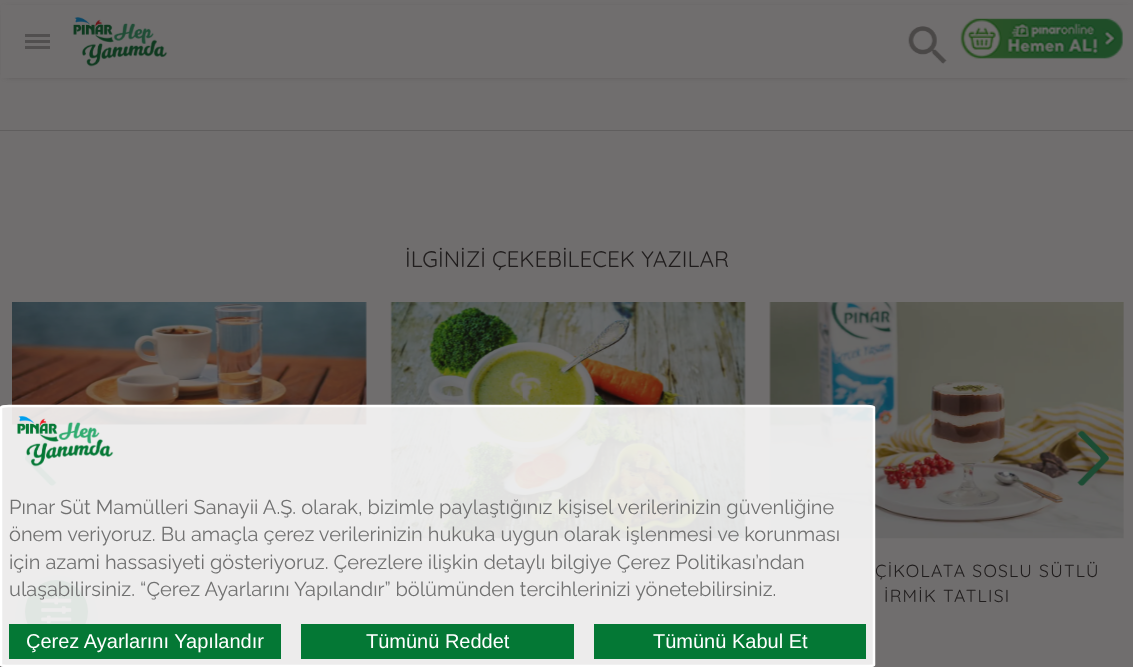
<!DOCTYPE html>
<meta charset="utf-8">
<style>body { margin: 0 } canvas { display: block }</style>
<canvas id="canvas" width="1133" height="667"></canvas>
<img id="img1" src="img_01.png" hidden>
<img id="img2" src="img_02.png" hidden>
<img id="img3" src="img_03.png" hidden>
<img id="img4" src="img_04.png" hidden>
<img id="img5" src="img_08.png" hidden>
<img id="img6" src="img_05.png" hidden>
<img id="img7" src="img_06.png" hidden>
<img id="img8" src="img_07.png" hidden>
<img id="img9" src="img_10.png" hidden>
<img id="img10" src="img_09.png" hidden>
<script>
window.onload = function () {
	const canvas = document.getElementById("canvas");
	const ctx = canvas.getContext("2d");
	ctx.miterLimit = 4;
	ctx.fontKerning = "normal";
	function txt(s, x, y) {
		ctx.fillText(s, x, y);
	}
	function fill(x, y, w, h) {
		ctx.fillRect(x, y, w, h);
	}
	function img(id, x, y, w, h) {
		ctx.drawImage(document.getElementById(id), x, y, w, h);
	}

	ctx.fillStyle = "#706E6E";
	fill(0, 0, 1133, 667);
	ctx.fillStyle = "#3F3C3C";
	ctx.filter = "blur(3px)";
	ctx.beginPath();
	ctx.rect(6, 10, 1122, 65);
	ctx.fill();
	ctx.filter = "none";
	ctx.fillStyle = "#706E6E";
	fill(1, 5, 1132, 73);
	ctx.fillStyle = "#514F4F";
	fill(25, 34, 25, 3);
	fill(25, 40, 25, 3);
	fill(25, 46, 25, 3);
	img("img1", 73, 17, 95, 50);
	img("img2", 908, 26, 39, 38);
	img("img3", 960, 18, 163, 41);
	ctx.fillStyle = "#605E5E";
	fill(0, 130, 1133, 1);
	img("img4", 25, 430, 32, 56);
	img("img5", 769, 302, 355, 237);
	img("img6", 1077, 430, 32, 56);
	img("img7", 12, 302, 355, 123);
	img("img8", 390, 302, 356, 237);
	ctx.fillStyle = "rgba(13, 10, 10, 0.2)";
	ctx.filter = "blur(5px)";
	ctx.beginPath();
	ctx.roundRect(25, 585, 63, 63, 31.5);
	ctx.fill();
	ctx.filter = "none";
	ctx.fillStyle = "#0E391F";
	ctx.beginPath();
	ctx.arc(56.5, 611.5, 31.5, 0, Math.PI * 2);
	ctx.fill();
	img("img9", 41, 596, 31, 28);
	ctx.fillStyle = "rgba(254, 254, 254, 0.88)";
	ctx.beginPath();
	ctx.moveTo(9, 405);
	ctx.lineTo(866, 405);
	ctx.bezierCurveTo(871, 405, 875, 406, 875, 408);
	ctx.lineTo(875, 665);
	ctx.bezierCurveTo(875, 666, 871, 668, 866, 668);
	ctx.lineTo(9, 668);
	ctx.bezierCurveTo(4, 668, 0, 666, 0, 665);
	ctx.lineTo(0, 408);
	ctx.bezierCurveTo(0, 406, 4, 405, 9, 405);
	ctx.closePath();
	ctx.fill();
	ctx.font = "22.5px Quicksand";
	ctx.fillStyle = "#201D1D";
	txt("İLGİNİZİ ÇEKEBİLECEK YAZILAR", 405, 267);
	ctx.letterSpacing = "1.25px";
	ctx.font = "17.5px Quicksand";
	txt("ÇİKOLATA SOSLU SÜTLÜ", 875, 577);
	txt("İRMİK TATLISI", 884, 602);
	ctx.beginPath();
	ctx.moveTo(9, 406);
	ctx.lineTo(866, 406);
	ctx.bezierCurveTo(870.5, 406, 874, 407, 874, 407.5);
	ctx.lineTo(874, 665);
	ctx.bezierCurveTo(874, 665.5, 870.5, 666, 866, 666);
	ctx.lineTo(9, 666);
	ctx.bezierCurveTo(4.5, 666, 1, 665.5, 1, 665);
	ctx.lineTo(1, 407.5);
	ctx.bezierCurveTo(1, 407, 4.5, 406, 9, 406);
	ctx.closePath();
	ctx.strokeStyle = "#FFFFFF";
	ctx.lineWidth = 2.5;
	ctx.stroke();
	img("img10", 17, 416, 97, 51);
	ctx.letterSpacing = "0px";
	ctx.font = "20px Raleway";
	ctx.fillStyle = "#717171";
	txt("Pınar Süt Mamülleri Sanayii A.Ş. olarak, bizimle paylaştığınız kişisel verilerinizin güvenliğine", 9, 514);
	txt("önem veriyoruz. Bu amaçla çerez verilerinizin hukuka uygun olarak işlenmesi ve korunması", 9, 541);
	txt("için azami hassasiyeti gösteriyoruz. Çerezlere ilişkin detaylı bilgiye Çerez Politikası’ndan", 9, 569);
	txt("ulaşabilirsiniz. “Çerez Ayarlarını Yapılandır” bölümünden tercihlerinizi yönetebilirsiniz.", 9, 596);
	ctx.fillStyle = "#047835";
	fill(9, 624, 272, 35);
	ctx.font = "20px Liberation Sans";
	ctx.fillStyle = "#FFFFFF";
	txt("Çerez Ayarlarını Yapılandır", 26, 648);
	ctx.fillStyle = "#047835";
	fill(301, 624, 273, 35);
	ctx.fillStyle = "#FFFFFF";
	txt("Tümünü Reddet", 366, 648);
	ctx.fillStyle = "#047835";
	fill(594, 624, 272, 35);
	ctx.fillStyle = "#FFFFFF";
	txt("Tümünü Kabul Et", 653, 648);
};
</script>
